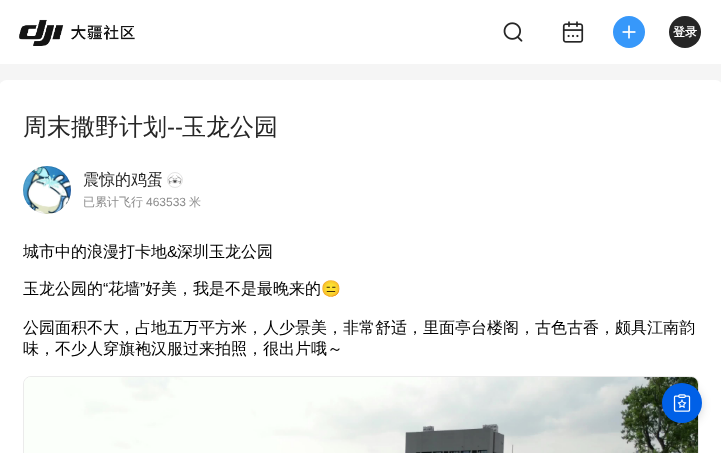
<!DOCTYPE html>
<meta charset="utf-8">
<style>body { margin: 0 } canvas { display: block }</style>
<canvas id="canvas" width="721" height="453"></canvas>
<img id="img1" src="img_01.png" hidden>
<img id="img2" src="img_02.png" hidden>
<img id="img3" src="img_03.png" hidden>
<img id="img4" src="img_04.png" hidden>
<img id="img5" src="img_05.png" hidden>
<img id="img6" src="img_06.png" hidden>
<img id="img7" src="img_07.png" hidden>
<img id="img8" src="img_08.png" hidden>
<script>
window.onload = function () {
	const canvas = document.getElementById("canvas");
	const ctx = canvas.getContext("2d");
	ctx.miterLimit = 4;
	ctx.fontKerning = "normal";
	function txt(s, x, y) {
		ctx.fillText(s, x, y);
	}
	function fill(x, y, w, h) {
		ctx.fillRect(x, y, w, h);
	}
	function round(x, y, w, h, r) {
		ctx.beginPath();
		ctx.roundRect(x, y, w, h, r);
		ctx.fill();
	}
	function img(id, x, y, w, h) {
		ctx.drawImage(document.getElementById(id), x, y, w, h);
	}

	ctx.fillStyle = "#F5F5F5";
	fill(0, 0, 721, 453);
	ctx.fillStyle = "#FFFFFF";
	fill(0, 0, 721, 64);
	img("img1", 19, 19, 116, 27);
	img("img2", 503, 22, 20, 20);
	img("img3", 562, 21, 22, 22);
	ctx.fillStyle = "#3798FA";
	ctx.beginPath();
	ctx.arc(629, 32, 16, 0, Math.PI * 2);
	ctx.fill();
	img("img4", 622, 25, 14, 14);
	ctx.fillStyle = "#262626";
	ctx.beginPath();
	ctx.arc(685, 32, 16, 0, Math.PI * 2);
	ctx.fill();
	ctx.fillStyle = "#FFFFFF";
	round(-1, 80, 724, 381, 8);
	img("img5", 23, 166, 48, 48);
	ctx.beginPath();
	ctx.arc(47, 190, 23.5, 0, Math.PI * 2);
	ctx.strokeStyle = "rgba(0, 0, 0, 0.08)";
	ctx.stroke();
	ctx.beginPath();
	ctx.arc(175, 180, 7.5, 0, Math.PI * 2);
	ctx.strokeStyle = "#E4E4E4";
	ctx.stroke();
	img("img6", 168, 175, 14, 9);
	ctx.beginPath();
	ctx.roundRect(23.5, 376.5, 675, 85, 7.5);
	ctx.strokeStyle = "#EBEBEB";
	ctx.stroke();
	img("img7", 24, 377, 674, 76);
	ctx.fillStyle = "rgba(0, 0, 0, 0.16)";
	ctx.filter = "blur(5px)";
	ctx.beginPath();
	ctx.roundRect(662, 385, 40, 40, 20);
	ctx.fill();
	ctx.filter = "none";
	ctx.fillStyle = "#0060E7";
	ctx.beginPath();
	ctx.arc(682, 403, 20, 0, Math.PI * 2);
	ctx.fill();
	img("img8", 673, 394, 18, 18);
	ctx.font = "bold 12px WenQuanYi Zen Hei";
	ctx.fillStyle = "#FFFFFF";
	txt("登录", 673, 36);
	ctx.font = "500 24px WenQuanYi Zen Hei";
	ctx.fillStyle = "#262626";
	txt("周末撒野计划", 23, 135);
	ctx.font = "24px Liberation Sans";
	txt("--", 167, 135);
	ctx.font = "500 24px WenQuanYi Zen Hei";
	txt("玉龙公园", 182, 135);
	ctx.font = "500 16px WenQuanYi Zen Hei";
	txt("震惊的鸡蛋", 83, 185);
	ctx.font = "500 12px WenQuanYi Zen Hei";
	ctx.fillStyle = "#8C8C8C";
	txt("已累计飞行", 83, 206);
	ctx.font = "12px Liberation Sans";
	txt("463533", 146, 206);
	ctx.font = "500 12px WenQuanYi Zen Hei";
	txt("米", 189, 206);
	ctx.font = "500 16px WenQuanYi Zen Hei";
	ctx.fillStyle = "#000000";
	txt("城市中的浪漫打卡地", 23, 257);
	ctx.font = "16px Liberation Sans";
	txt("&", 167, 257);
	ctx.font = "500 16px WenQuanYi Zen Hei";
	txt("深圳玉龙公园", 177, 257);
	txt("玉龙公园的", 23, 294);
	ctx.font = "16px Liberation Sans";
	txt("“", 103, 294);
	ctx.font = "500 16px WenQuanYi Zen Hei";
	txt("花墙", 108, 294);
	ctx.font = "16px Liberation Sans";
	txt("”", 140, 294);
	ctx.font = "500 16px WenQuanYi Zen Hei";
	txt("好美，我是不是最晚来的", 145, 294);
	ctx.font = "16px Noto Color Emoji";
	txt("😑", 321, 294);
	ctx.font = "500 16px WenQuanYi Zen Hei";
	txt("公园面积不大，占地五万平方米，人少景美，非常舒适，里面亭台楼阁，古色古香，颇具江南韵", 23, 333);
	txt("味，不少人穿旗袍汉服过来拍照，很出片哦～", 23, 354);
};
</script>
